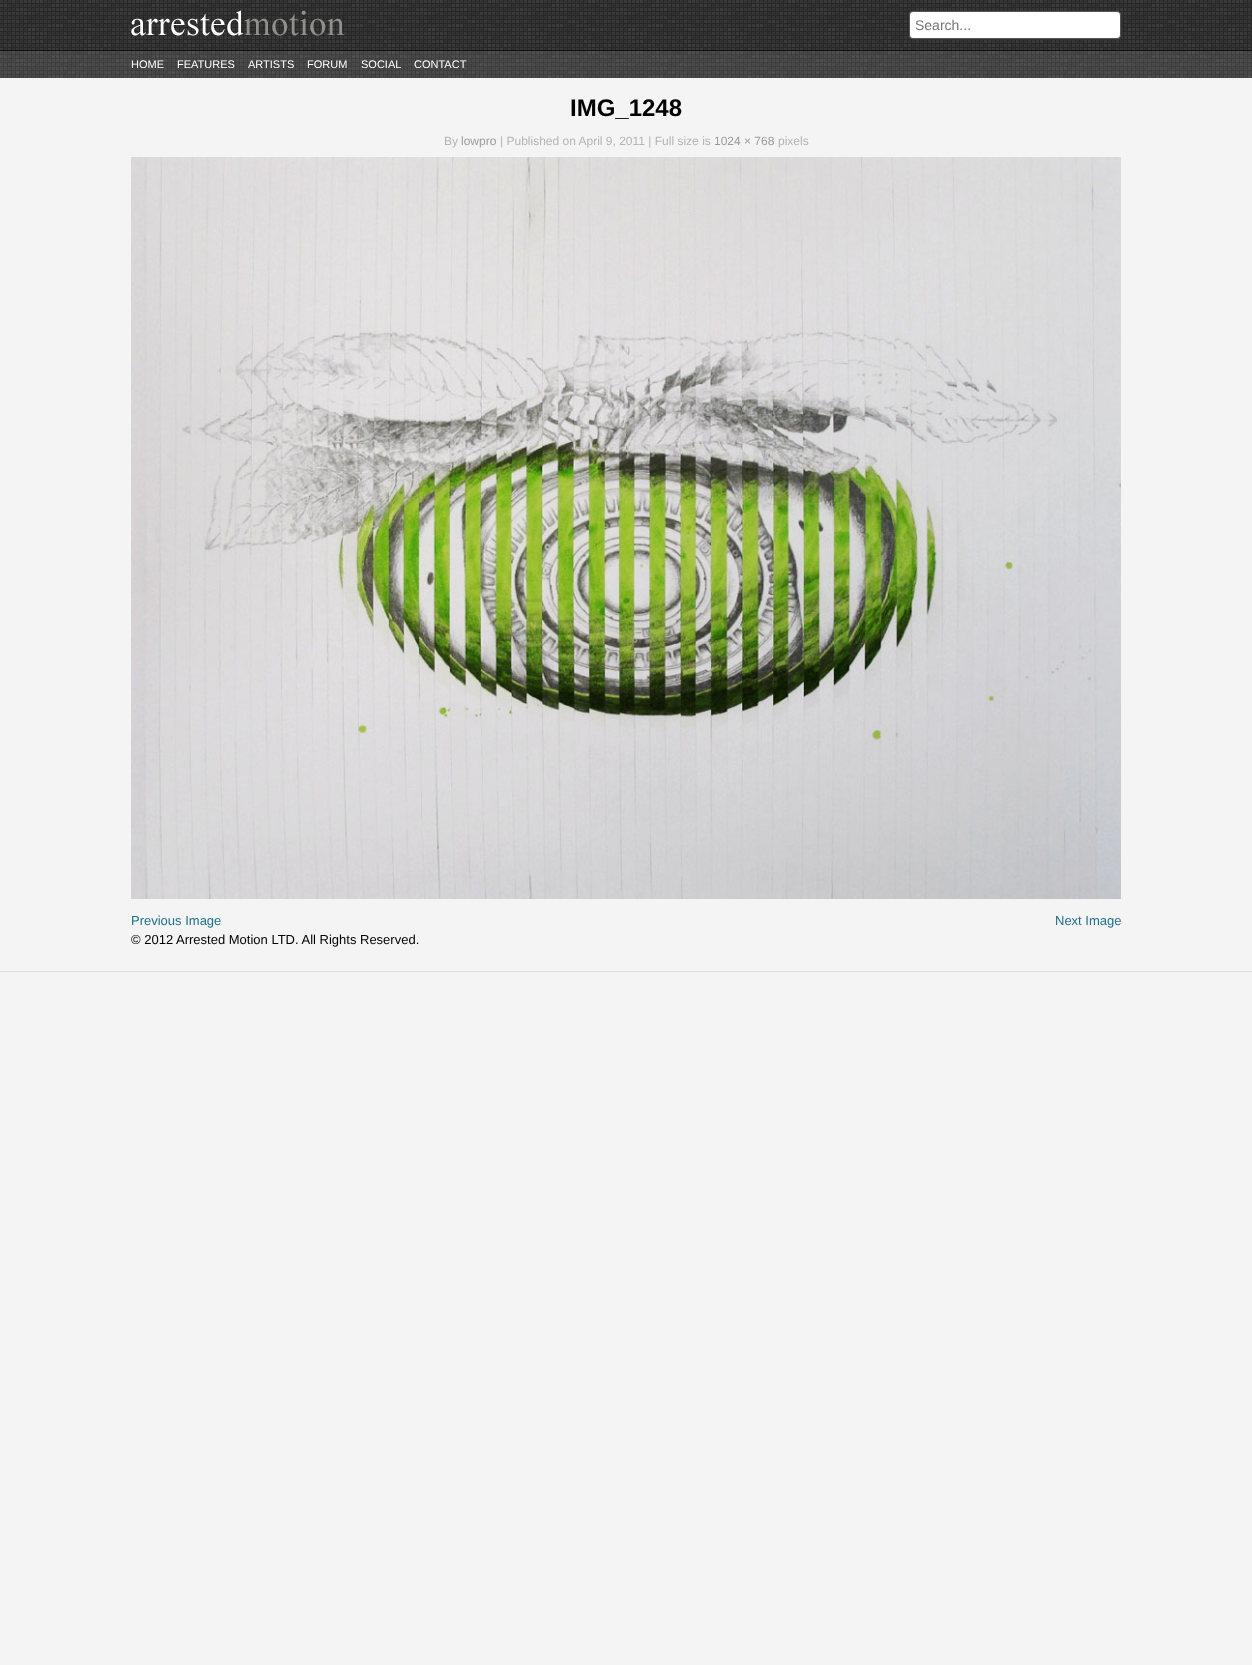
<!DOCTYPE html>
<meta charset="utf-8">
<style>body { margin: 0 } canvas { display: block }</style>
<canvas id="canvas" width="1252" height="1665"></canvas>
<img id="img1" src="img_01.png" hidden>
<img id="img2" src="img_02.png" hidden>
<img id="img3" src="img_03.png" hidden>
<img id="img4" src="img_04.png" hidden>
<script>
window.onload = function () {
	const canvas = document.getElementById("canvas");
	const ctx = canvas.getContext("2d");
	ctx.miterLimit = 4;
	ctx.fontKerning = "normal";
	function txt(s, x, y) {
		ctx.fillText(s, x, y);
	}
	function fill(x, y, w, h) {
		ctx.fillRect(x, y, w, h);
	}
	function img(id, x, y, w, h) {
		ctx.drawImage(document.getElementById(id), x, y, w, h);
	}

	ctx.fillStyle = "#F4F4F4";
	fill(0, 0, 1252, 1665);
	img("img1", 0, 0, 1252, 50);
	img("img2", 131, 10, 214, 26);
	ctx.fillStyle = "#333333";
	ctx.filter = "blur(0.5px)";
	ctx.beginPath();
	ctx.roundRect(910, 12, 212, 28, 4);
	ctx.fill();
	ctx.filter = "none";
	ctx.fillStyle = "#FFFFFF";
	ctx.beginPath();
	ctx.roundRect(909.5, 11.5, 211, 27, 3.5);
	ctx.fill();
	ctx.strokeStyle = "#555555";
	ctx.stroke();
	img("img3", 0, 51, 1252, 27);
	ctx.fillStyle = "#111111";
	fill(0, 50, 1252, 1);
	img("img4", 131, 157, 990, 742);
	ctx.fillStyle = "#DEDEDE";
	fill(0, 971, 1252, 1);
	ctx.font = "14px Liberation Sans";
	ctx.fillStyle = "#757575";
	txt("Search...", 915, 30);
	ctx.font = "11px Liberation Sans";
	ctx.fillStyle = "#FFFFFF";
	txt("HOME", 131, 68);
	txt("FEATURES", 177, 68);
	txt("ARTISTS", 248, 68);
	txt("FORUM", 307, 68);
	txt("SOCIAL", 361, 68);
	txt("CONTACT", 414, 68);
	ctx.font = "bold 24px Liberation Sans";
	ctx.fillStyle = "#000000";
	txt("IMG_1248", 570, 116);
	ctx.font = "12px Liberation Sans";
	ctx.fillStyle = "#B4B5B0";
	txt("By", 444, 145);
	ctx.fillStyle = "#9B9B9B";
	txt("lowpro", 461, 145);
	ctx.fillStyle = "#B4B5B0";
	txt("| Published on April 9, 2011 | Full size is", 500, 145);
	ctx.fillStyle = "#9B9B9B";
	txt("1024 × 768", 714, 145);
	ctx.fillStyle = "#B4B5B0";
	txt("pixels", 778, 145);
	ctx.font = "13px Liberation Sans";
	ctx.fillStyle = "#1D718F";
	txt("Previous Image", 131, 925);
	txt("Next Image", 1055, 925);
	ctx.fillStyle = "#000000";
	txt("© 2012 Arrested Motion LTD. All Rights Reserved.", 131, 944);
};
</script>
